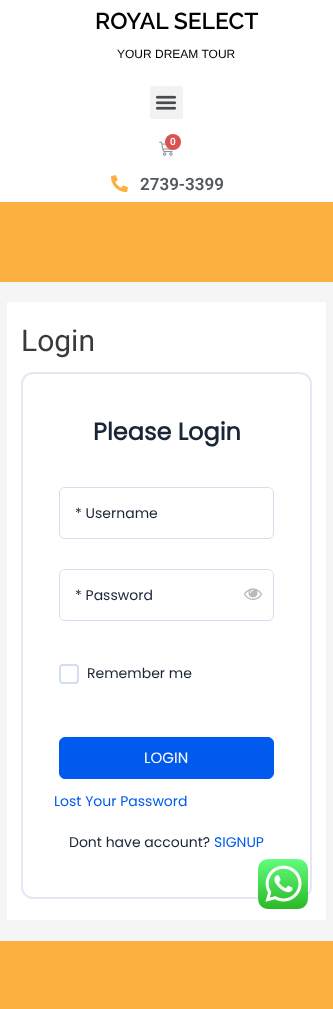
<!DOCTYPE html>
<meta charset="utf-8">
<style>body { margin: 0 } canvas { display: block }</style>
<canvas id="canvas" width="333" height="1009"></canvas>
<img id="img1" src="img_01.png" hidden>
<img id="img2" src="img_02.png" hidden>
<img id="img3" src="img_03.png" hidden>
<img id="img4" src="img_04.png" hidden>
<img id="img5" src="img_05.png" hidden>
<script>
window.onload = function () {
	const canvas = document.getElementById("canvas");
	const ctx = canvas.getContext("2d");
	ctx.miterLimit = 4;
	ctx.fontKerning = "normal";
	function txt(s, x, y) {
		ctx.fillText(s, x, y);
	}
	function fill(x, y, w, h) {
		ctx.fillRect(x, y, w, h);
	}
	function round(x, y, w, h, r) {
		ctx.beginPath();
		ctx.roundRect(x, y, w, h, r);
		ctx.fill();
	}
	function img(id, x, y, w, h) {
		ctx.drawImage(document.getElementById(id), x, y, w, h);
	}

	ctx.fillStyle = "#F5F5F5";
	fill(0, 0, 333, 1009);
	ctx.fillStyle = "#FFFFFF";
	fill(0, 0, 333, 202);
	ctx.fillStyle = "#F2F2F2";
	round(150, 86, 33, 33, 3);
	img("img1", 155, 95, 22, 15);
	img("img2", 159, 141, 14, 15);
	ctx.fillStyle = "#D9534F";
	ctx.beginPath();
	ctx.arc(173, 142, 8, 0, Math.PI * 2);
	ctx.fill();
	img("img3", 111, 175, 17, 18);
	ctx.fillStyle = "#FCB040";
	fill(0, 202, 333, 80);
	ctx.fillStyle = "#FFFFFF";
	fill(7, 302, 319, 618);
	ctx.beginPath();
	ctx.roundRect(22, 373, 289, 525, 11);
	ctx.strokeStyle = "#E6E7F5";
	ctx.lineWidth = 2;
	ctx.stroke();
	ctx.fillStyle = "#D3DEF0";
	ctx.beginPath();
	ctx.moveTo(65, 487);
	ctx.lineTo(75, 487);
	ctx.lineTo(75, 539);
	ctx.lineTo(65, 539);
	ctx.bezierCurveTo(62, 539, 59, 536, 59, 533);
	ctx.lineTo(59, 493);
	ctx.bezierCurveTo(59, 490, 62, 487, 65, 487);
	ctx.closePath();
	ctx.moveTo(65, 488);
	ctx.lineTo(75, 488);
	ctx.lineTo(75, 538);
	ctx.lineTo(65, 538);
	ctx.bezierCurveTo(62, 538, 60, 536, 60, 533);
	ctx.lineTo(60, 493);
	ctx.bezierCurveTo(60, 490, 62, 488, 65, 488);
	ctx.closePath();
	ctx.fill("evenodd");
	fill(75, 487, 83, 1);
	fill(75, 538, 83, 1);
	ctx.beginPath();
	ctx.moveTo(158, 487);
	ctx.lineTo(268, 487);
	ctx.bezierCurveTo(271, 487, 274, 490, 274, 493);
	ctx.lineTo(274, 533);
	ctx.bezierCurveTo(274, 536, 271, 539, 268, 539);
	ctx.lineTo(158, 539);
	ctx.closePath();
	ctx.moveTo(158, 488);
	ctx.lineTo(268, 488);
	ctx.bezierCurveTo(271, 488, 273, 490, 273, 493);
	ctx.lineTo(273, 533);
	ctx.bezierCurveTo(273, 536, 271, 538, 268, 538);
	ctx.lineTo(158, 538);
	ctx.closePath();
	ctx.fill("evenodd");
	ctx.beginPath();
	ctx.moveTo(65, 569);
	ctx.lineTo(75, 569);
	ctx.lineTo(75, 621);
	ctx.lineTo(65, 621);
	ctx.bezierCurveTo(62, 621, 59, 618, 59, 615);
	ctx.lineTo(59, 575);
	ctx.bezierCurveTo(59, 572, 62, 569, 65, 569);
	ctx.closePath();
	ctx.moveTo(65, 570);
	ctx.lineTo(75, 570);
	ctx.lineTo(75, 620);
	ctx.lineTo(65, 620);
	ctx.bezierCurveTo(62, 620, 60, 618, 60, 615);
	ctx.lineTo(60, 575);
	ctx.bezierCurveTo(60, 572, 62, 570, 65, 570);
	ctx.closePath();
	ctx.fill("evenodd");
	fill(75, 569, 78, 1);
	fill(75, 620, 78, 1);
	ctx.beginPath();
	ctx.moveTo(153, 569);
	ctx.lineTo(268, 569);
	ctx.bezierCurveTo(271, 569, 274, 572, 274, 575);
	ctx.lineTo(274, 615);
	ctx.bezierCurveTo(274, 618, 271, 621, 268, 621);
	ctx.lineTo(153, 621);
	ctx.closePath();
	ctx.moveTo(153, 570);
	ctx.lineTo(268, 570);
	ctx.bezierCurveTo(271, 570, 273, 572, 273, 575);
	ctx.lineTo(273, 615);
	ctx.bezierCurveTo(273, 618, 271, 620, 268, 620);
	ctx.lineTo(153, 620);
	ctx.closePath();
	ctx.fill("evenodd");
	img("img4", 244, 588, 18, 12);
	ctx.beginPath();
	ctx.roundRect(60, 665, 18, 18, 3);
	ctx.strokeStyle = "#D3DEF0";
	ctx.stroke();
	ctx.fillStyle = "#005AEE";
	ctx.beginPath();
	ctx.roundRect(59.5, 737.5, 214, 41, 5.5);
	ctx.fill();
	ctx.strokeStyle = "#005AEE";
	ctx.lineWidth = 1;
	ctx.stroke();
	ctx.fillStyle = "#FCB040";
	fill(0, 941, 333, 68);
	img("img5", 258, 859, 50, 50);
	ctx.font = "600 23px Raleway";
	ctx.fillStyle = "#000000";
	txt("ROYAL SELECT", 95, 29);
	ctx.font = "12px Liberation Sans";
	txt("YOUR DREAM TOUR", 117, 58);
	ctx.font = "600 10px Roboto";
	ctx.fillStyle = "#FFFFFF";
	txt("0", 170, 145);
	ctx.font = "600 17px Roboto";
	ctx.fillStyle = "#54595F";
	txt("2739-3399", 140, 190);
	ctx.font = "30px Roboto";
	ctx.fillStyle = "#3A3A3A";
	txt("Login", 21, 351);
	ctx.font = "bold 24px Poppins";
	ctx.fillStyle = "#1A2538";
	txt("Please Login", 93, 440);
	ctx.font = "14px Poppins";
	txt("* Username", 75, 518);
	txt("* Password", 75, 600);
	txt("Remember me", 87, 678);
	ctx.font = "15px Poppins";
	ctx.fillStyle = "#FFFFFF";
	txt("LOGIN", 144, 763);
	ctx.font = "14px Poppins";
	ctx.fillStyle = "#005AEE";
	txt("Lost Your Password", 54, 806);
	ctx.fillStyle = "#1A2538";
	txt("Dont have account?", 69, 847);
	ctx.fillStyle = "#005AEE";
	txt("SIGNUP", 214, 847);
};
</script>
